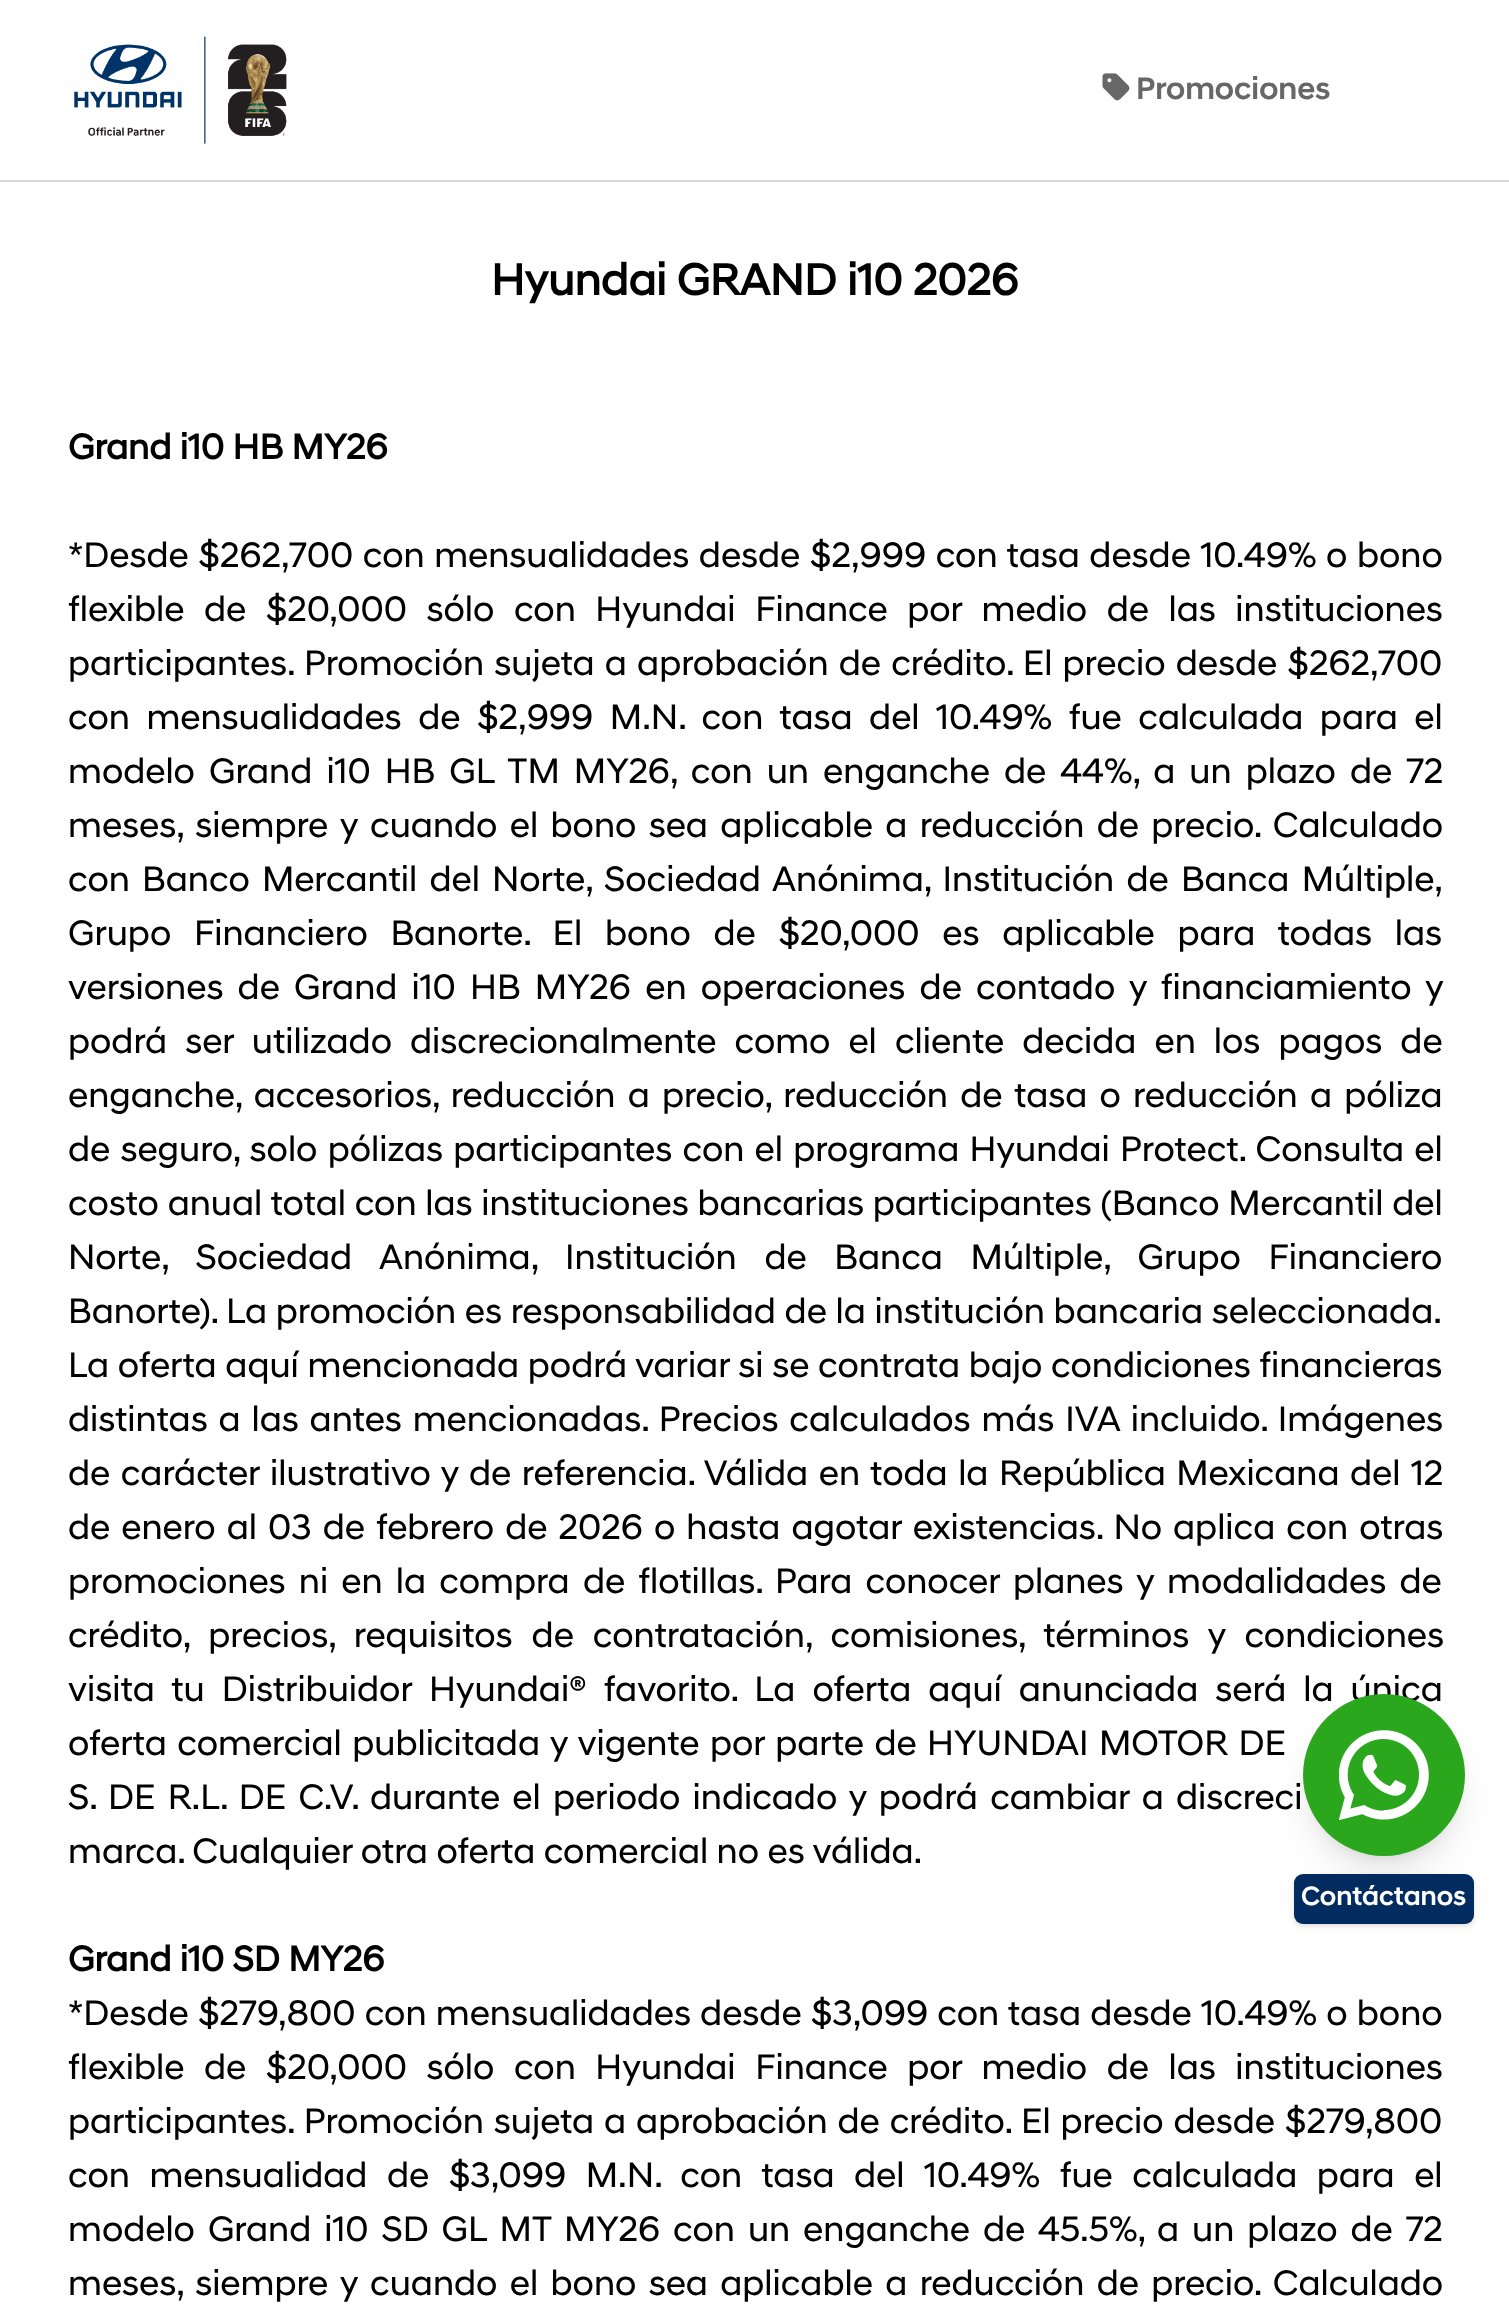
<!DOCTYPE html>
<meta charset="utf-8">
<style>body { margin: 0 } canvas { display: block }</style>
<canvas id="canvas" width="1509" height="2319"></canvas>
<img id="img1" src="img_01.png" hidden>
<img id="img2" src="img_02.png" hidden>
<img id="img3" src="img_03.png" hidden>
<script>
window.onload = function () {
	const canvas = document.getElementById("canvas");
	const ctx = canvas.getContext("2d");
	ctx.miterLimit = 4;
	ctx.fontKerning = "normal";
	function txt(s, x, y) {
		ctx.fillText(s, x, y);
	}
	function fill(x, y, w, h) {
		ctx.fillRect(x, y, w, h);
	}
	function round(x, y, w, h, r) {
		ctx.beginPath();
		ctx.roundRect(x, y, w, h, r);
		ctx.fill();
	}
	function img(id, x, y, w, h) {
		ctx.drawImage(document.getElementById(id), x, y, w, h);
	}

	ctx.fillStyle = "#FFFFFF";
	fill(0, 0, 1509, 2319);
	ctx.fillStyle = "#D8D8D8";
	fill(0, 180, 1509, 2);
	img("img1", 74, 36, 213, 108);
	img("img2", 1102, 73, 28, 28);
	ctx.fillStyle = "rgba(0, 0, 0, 0.1)";
	ctx.filter = "blur(7px)";
	ctx.beginPath();
	ctx.roundRect(1312, 1712, 144, 144, 72);
	ctx.fill();
	ctx.filter = "none";
	ctx.filter = "blur(17px)";
	ctx.beginPath();
	ctx.roundRect(1310, 1724, 148, 148, 74);
	ctx.fill();
	ctx.filter = "none";
	ctx.filter = "blur(2px)";
	ctx.beginPath();
	ctx.roundRect(1296, 1879, 176, 45, 7);
	ctx.fill();
	ctx.filter = "none";
	ctx.filter = "blur(3.5px)";
	ctx.beginPath();
	ctx.roundRect(1294, 1877, 180, 49, 9);
	ctx.fill();
	ctx.filter = "none";
	ctx.fillStyle = "#022C5F";
	round(1294, 1874, 180, 50, 9);
	ctx.font = "500 31.5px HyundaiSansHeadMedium";
	ctx.fillStyle = "#676767";
	txt("Promociones", 1136, 99);
	ctx.font = "bold 45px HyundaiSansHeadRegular";
	ctx.fillStyle = "#000000";
	txt("Hyundai GRAND i10 2026", 491, 295);
	ctx.font = "bold 36px HyundaiSansHeadRegular";
	txt("Grand i10 HB MY26", 68, 459);
	ctx.wordSpacing = "1.1px";
	ctx.font = "36px HyundaiSansHeadRegular";
	txt("*Desde $262,700 con mensualidades desde $2,999 con tasa desde 10.49% o bono", 68, 567);
	ctx.wordSpacing = "11.1px";
	txt("flexible de $20,000 sólo con Hyundai Finance por medio de las instituciones", 68, 621);
	ctx.wordSpacing = "1.75px";
	txt("participantes. Promoción sujeta a aprobación de crédito. El precio desde $262,700", 68, 675);
	ctx.wordSpacing = "8.1px";
	txt("con mensualidades de $2,999 M.N. con tasa del 10.49% fue calculada para el", 68, 729);
	ctx.wordSpacing = "5.6px";
	txt("modelo Grand i10 HB GL TM MY26, con un enganche de 44%, a un plazo de 72", 68, 783);
	ctx.wordSpacing = "3.9px";
	txt("meses, siempre y cuando el bono sea aplicable a reducción de precio. Calculado", 68, 837);
	ctx.wordSpacing = "3.75px";
	txt("con Banco Mercantil del Norte, Sociedad Anónima, Institución de Banca Múltiple,", 68, 891);
	ctx.wordSpacing = "14.25px";
	txt("Grupo Financiero Banorte. El bono de $20,000 es aplicable para todas las", 68, 945);
	ctx.wordSpacing = "5.75px";
	txt("versiones de Grand i10 HB MY26 en operaciones de contado y financiamiento y", 68, 999);
	ctx.wordSpacing = "9.6px";
	txt("podrá ser utilizado discrecionalmente como el cliente decida en los pagos de", 68, 1053);
	ctx.wordSpacing = "3.75px";
	txt("enganche, accesorios, reducción a precio, reducción de tasa o reducción a póliza", 68, 1107);
	ctx.wordSpacing = "1.75px";
	txt("de seguro, solo pólizas participantes con el programa Hyundai Protect. Consulta el", 68, 1161);
	ctx.wordSpacing = "0.25px";
	txt("costo anual total con las instituciones bancarias participantes (Banco Mercantil del", 68, 1215);
	ctx.wordSpacing = "19.25px";
	txt("Norte, Sociedad Anónima, Institución de Banca Múltiple, Grupo Financiero", 68, 1269);
	ctx.wordSpacing = "0.25px";
	txt("Banorte). La promoción es responsabilidad de la institución bancaria seleccionada.", 68, 1323);
	txt("La oferta aquí mencionada podrá variar si se contrata bajo condiciones financieras", 68, 1377);
	ctx.wordSpacing = "2.4px";
	txt("distintas a las antes mencionadas. Precios calculados más IVA incluido. Imágenes", 68, 1431);
	ctx.wordSpacing = "2.1px";
	txt("de carácter ilustrativo y de referencia. Válida en toda la República Mexicana del 12", 68, 1485);
	ctx.wordSpacing = "2.6px";
	txt("de enero al 03 de febrero de 2026 o hasta agotar existencias. No aplica con otras", 68, 1539);
	ctx.wordSpacing = "4.75px";
	txt("promociones ni en la compra de flotillas. Para conocer planes y modalidades de", 68, 1593);
	ctx.wordSpacing = "10.5px";
	txt("crédito, precios, requisitos de contratación, comisiones, términos y condiciones", 68, 1647);
	ctx.wordSpacing = "8.6px";
	txt("visita tu Distribuidor Hyundai® favorito. La oferta aquí anunciada será la única", 68, 1701);
	ctx.wordSpacing = "2px";
	txt("oferta comercial publicitada y vigente por parte de HYUNDAI MOTOR DE", 68, 1755);
	ctx.wordSpacing = "3.75px";
	txt("S. DE R.L. DE C.V. durante el periodo indicado y podrá cambiar a discreci", 68, 1809);
	ctx.wordSpacing = "0px";
	txt("marca. Cualquier otra oferta comercial no es válida.", 68, 1863);
	ctx.font = "bold 36px HyundaiSansHeadRegular";
	txt("Grand i10 SD MY26", 68, 1971);
	ctx.wordSpacing = "0.75px";
	ctx.font = "36px HyundaiSansHeadRegular";
	txt("*Desde $279,800 con mensualidades desde $3,099 con tasa desde 10.49% o bono", 68, 2025);
	ctx.wordSpacing = "11.1px";
	txt("flexible de $20,000 sólo con Hyundai Finance por medio de las instituciones", 68, 2079);
	ctx.wordSpacing = "1.5px";
	txt("participantes. Promoción sujeta a aprobación de crédito. El precio desde $279,800", 68, 2133);
	ctx.wordSpacing = "11.1px";
	txt("con mensualidad de $3,099 M.N. con tasa del 10.49% fue calculada para el", 68, 2187);
	ctx.wordSpacing = "4.5px";
	txt("modelo Grand i10 SD GL MT MY26 con un enganche de 45.5%, a un plazo de 72", 68, 2241);
	ctx.wordSpacing = "3.9px";
	txt("meses, siempre y cuando el bono sea aplicable a reducción de precio. Calculado", 68, 2295);
	ctx.fillStyle = "#2AA71D";
	ctx.beginPath();
	ctx.arc(1384, 1775, 81, 0, Math.PI * 2);
	ctx.fill();
	img("img3", 1339, 1730, 90, 90);
	ctx.wordSpacing = "0px";
	ctx.font = "500 27px HyundaiSansHeadMedium";
	ctx.fillStyle = "#FFFFFF";
	txt("Contáctanos", 1301, 1905);
};
</script>
